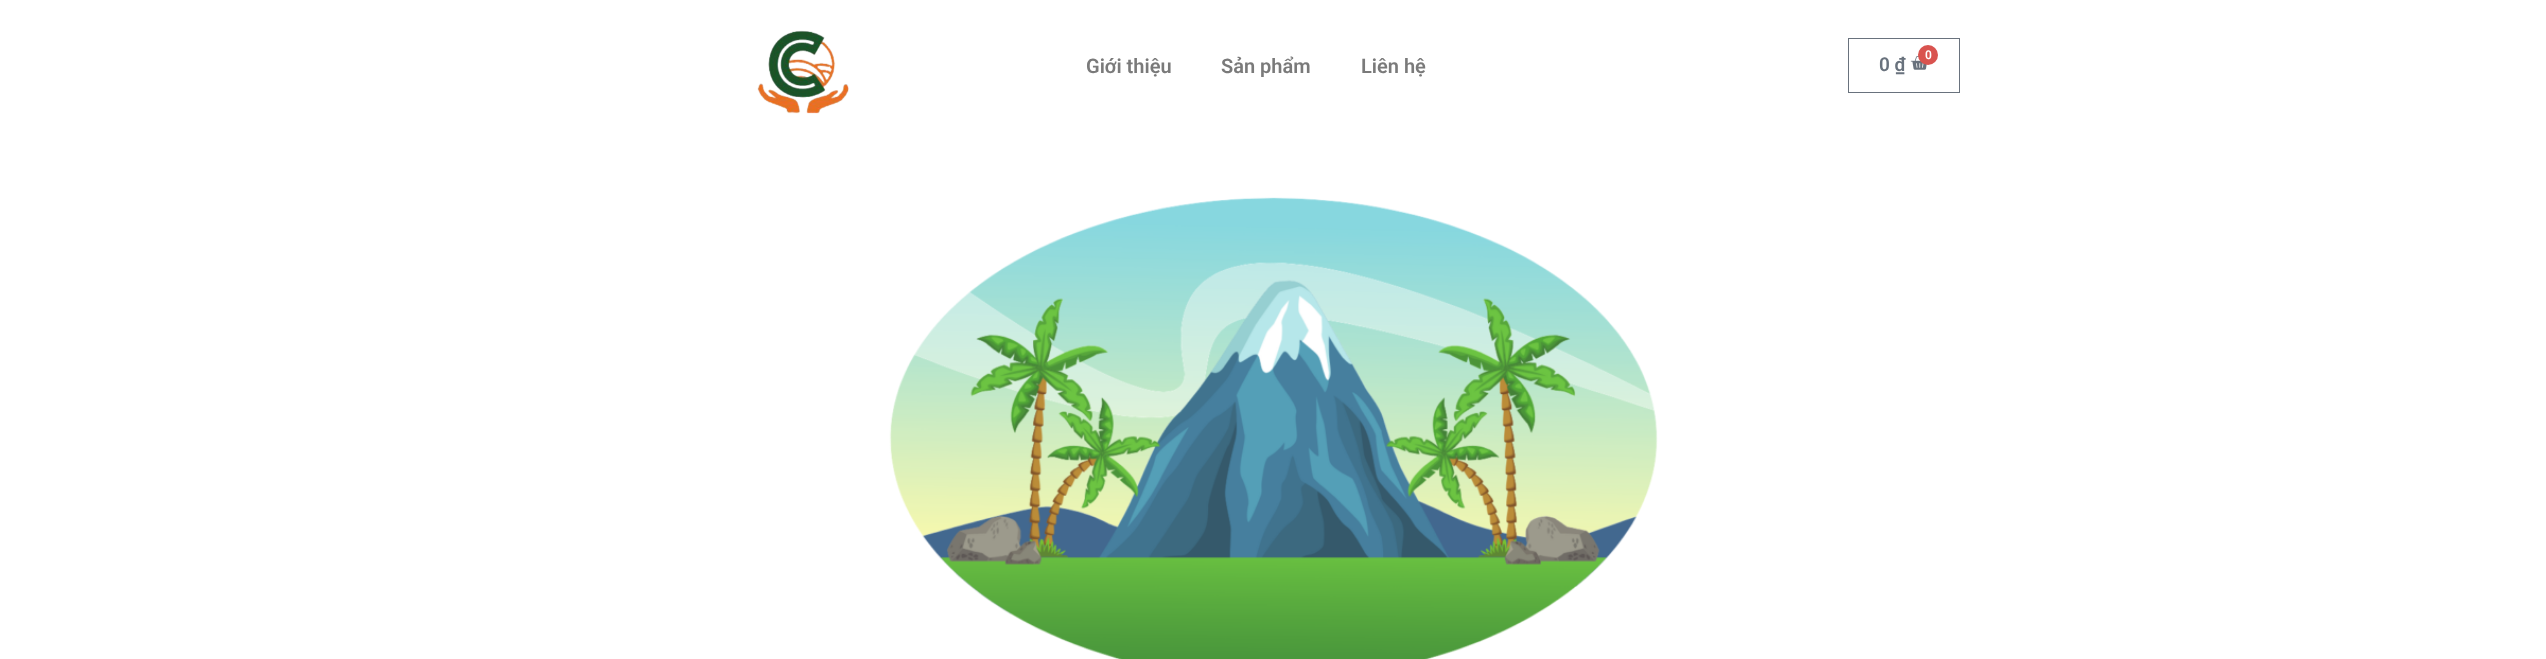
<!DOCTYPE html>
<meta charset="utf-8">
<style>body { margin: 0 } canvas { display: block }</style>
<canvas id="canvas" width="2546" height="659"></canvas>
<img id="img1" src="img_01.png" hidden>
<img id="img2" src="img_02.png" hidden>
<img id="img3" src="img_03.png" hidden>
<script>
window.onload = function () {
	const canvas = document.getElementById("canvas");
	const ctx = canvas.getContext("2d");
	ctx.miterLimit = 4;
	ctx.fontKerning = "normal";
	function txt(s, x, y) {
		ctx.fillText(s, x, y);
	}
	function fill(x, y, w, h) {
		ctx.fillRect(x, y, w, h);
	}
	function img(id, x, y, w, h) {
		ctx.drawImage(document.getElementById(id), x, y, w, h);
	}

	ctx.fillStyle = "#FFFFFF";
	fill(0, 0, 2546, 659);
	img("img1", 757, 30, 92, 84);
	ctx.strokeStyle = "#69727D";
	ctx.strokeRect(1848.5, 38.5, 111, 54);
	img("img2", 1910, 56, 17, 14);
	ctx.fillStyle = "#D9534F";
	ctx.beginPath();
	ctx.arc(1928, 55, 10, 0, Math.PI * 2);
	ctx.fill();
	img("img3", 889, 197, 769, 462);
	ctx.font = "600 20px Roboto";
	ctx.fillStyle = "#7A7A7A";
	txt("Giới thiệu", 1086, 73);
	txt("Sản phẩm", 1221, 73);
	txt("Liên hệ", 1361, 73);
	ctx.font = "600 12px Roboto";
	ctx.fillStyle = "#FFFFFF";
	txt("0", 1925, 59);
	ctx.font = "600 19px Roboto";
	ctx.fillStyle = "#69727D";
	txt("0 ₫", 1879, 71);
};
</script>
